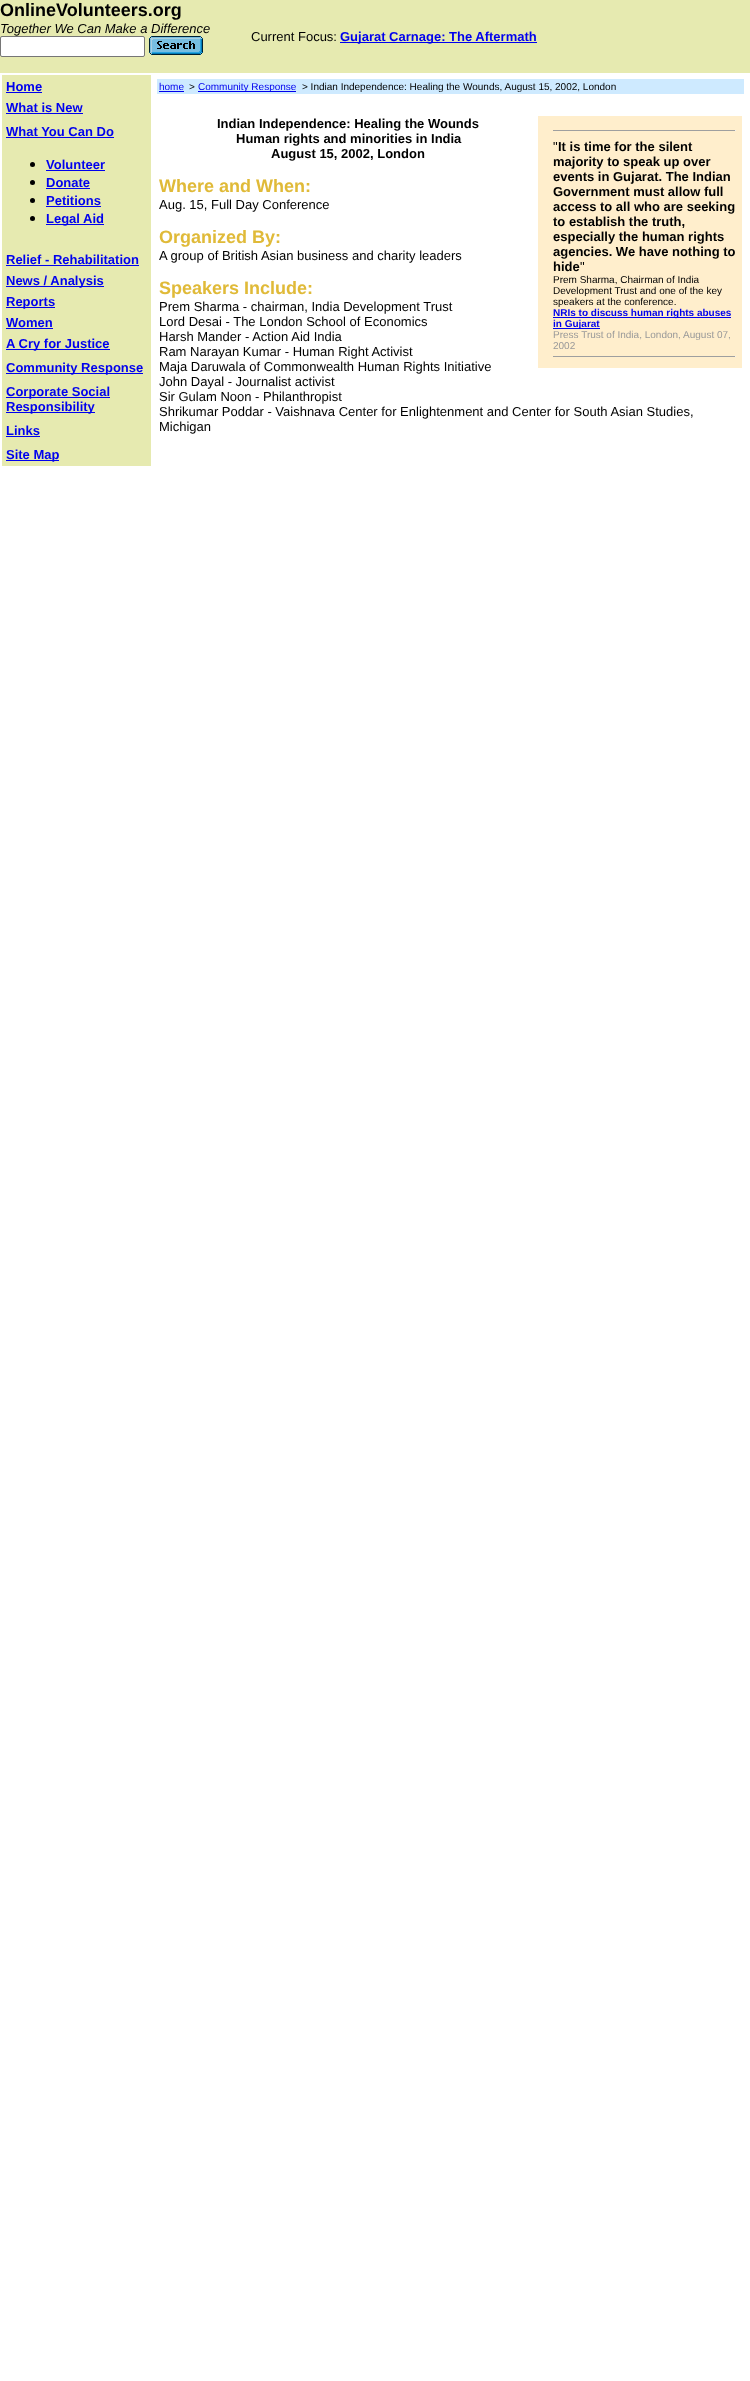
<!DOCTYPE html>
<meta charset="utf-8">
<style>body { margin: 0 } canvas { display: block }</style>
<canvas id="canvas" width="750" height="2381"></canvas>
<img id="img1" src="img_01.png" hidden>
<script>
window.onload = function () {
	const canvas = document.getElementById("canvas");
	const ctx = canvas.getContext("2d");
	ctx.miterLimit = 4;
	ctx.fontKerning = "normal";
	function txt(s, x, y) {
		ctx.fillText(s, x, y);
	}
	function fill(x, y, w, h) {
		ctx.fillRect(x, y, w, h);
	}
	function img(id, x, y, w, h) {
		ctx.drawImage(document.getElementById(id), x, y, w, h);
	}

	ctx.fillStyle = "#FFFFFF";
	fill(0, 0, 750, 2381);
	ctx.fillStyle = "#E6EAB0";
	fill(0, 0, 750, 73);
	ctx.fillStyle = "#FFFFFF";
	ctx.beginPath();
	ctx.roundRect(0.5, 36.5, 144, 20, 1.5);
	ctx.fill();
	ctx.strokeStyle = "#767676";
	ctx.stroke();
	img("img1", 149, 36, 54, 19);
	ctx.fillStyle = "#0000EE";
	fill(340, 42, 197, 1);
	ctx.fillStyle = "#E6EAB0";
	fill(2, 75, 149, 391);
	ctx.fillStyle = "#0000EE";
	fill(6, 92, 36, 1);
	fill(6, 113, 77, 1);
	fill(6, 137, 108, 1);
	ctx.fillStyle = "#000000";
	ctx.beginPath();
	ctx.arc(32.5, 164.5, 2.5, 0, Math.PI * 2);
	ctx.fill();
	ctx.fillStyle = "#0000EE";
	fill(46, 170, 59, 1);
	ctx.fillStyle = "#000000";
	ctx.beginPath();
	ctx.arc(32.5, 182.5, 2.5, 0, Math.PI * 2);
	ctx.fill();
	ctx.fillStyle = "#0000EE";
	fill(46, 188, 44, 1);
	ctx.fillStyle = "#000000";
	ctx.beginPath();
	ctx.arc(32.5, 200.5, 2.5, 0, Math.PI * 2);
	ctx.fill();
	ctx.fillStyle = "#0000EE";
	fill(46, 206, 55, 1);
	ctx.fillStyle = "#000000";
	ctx.beginPath();
	ctx.arc(32.5, 218.5, 2.5, 0, Math.PI * 2);
	ctx.fill();
	ctx.fillStyle = "#0000EE";
	fill(46, 224, 58, 1);
	fill(6, 265, 133, 1);
	fill(6, 286, 98, 1);
	fill(6, 307, 49, 1);
	fill(6, 328, 47, 1);
	fill(6, 349, 104, 1);
	fill(6, 373, 137, 1);
	fill(6, 397, 104, 1);
	fill(6, 412, 89, 1);
	fill(6, 436, 34, 1);
	fill(6, 460, 53, 1);
	ctx.fillStyle = "#CEEAFF";
	fill(157, 79, 587, 15);
	ctx.fillStyle = "#0000EE";
	fill(159, 91, 25, 1);
	fill(198, 91, 98, 1);
	ctx.fillStyle = "#FFEECC";
	fill(538, 116, 204, 252);
	ctx.fillStyle = "#9F9F9F";
	fill(553, 130, 183, 1);
	ctx.fillStyle = "#EEEEEE";
	fill(735, 130, 1, 1);
	ctx.fillStyle = "#0000EE";
	fill(553, 317, 178, 1);
	fill(553, 328, 47, 1);
	ctx.fillStyle = "#9F9F9F";
	fill(553, 356, 183, 1);
	ctx.fillStyle = "#EEEEEE";
	fill(735, 356, 1, 1);
	ctx.font = "bold 18px Liberation Sans";
	ctx.fillStyle = "#000000";
	txt("OnlineVolunteers.org", 0, 16);
	ctx.font = "italic 13px Liberation Sans";
	txt("Together We Can Make a Difference", 0, 33);
	ctx.font = "13px Liberation Sans";
	txt("Current Focus:", 251, 41);
	ctx.font = "bold 13px Liberation Sans";
	ctx.fillStyle = "#0000EE";
	txt("Gujarat Carnage: The Aftermath", 340, 41);
	txt("Home", 6, 91);
	txt("What is New", 6, 112);
	txt("What You Can Do", 6, 136);
	txt("Volunteer", 46, 169);
	txt("Donate", 46, 187);
	txt("Petitions", 46, 205);
	txt("Legal Aid", 46, 223);
	txt("Relief - Rehabilitation", 6, 264);
	txt("News / Analysis", 6, 285);
	txt("Reports", 6, 306);
	txt("Women", 6, 327);
	txt("A Cry for Justice", 6, 348);
	txt("Community Response", 6, 372);
	txt("Corporate Social", 6, 396);
	txt("Responsibility", 6, 411);
	txt("Links", 6, 435);
	txt("Site Map", 6, 459);
	ctx.font = "10px Liberation Sans";
	txt("home", 159, 90);
	ctx.fillStyle = "#000000";
	txt(">", 189, 90);
	ctx.fillStyle = "#0000EE";
	txt("Community Response", 198, 90);
	ctx.fillStyle = "#000000";
	txt("> Indian Independence: Healing the Wounds, August 15, 2002, London", 302, 90);
	ctx.font = "bold 13px Liberation Sans";
	txt("Indian Independence: Healing the Wounds", 217, 128);
	txt("Human rights and minorities in India", 236, 143);
	txt("August 15, 2002, London", 271, 158);
	ctx.font = "bold 18px Liberation Sans";
	ctx.fillStyle = "#E0BA38";
	txt("Where and When:", 159, 192);
	ctx.font = "13px Liberation Sans";
	ctx.fillStyle = "#000000";
	txt("Aug. 15, Full Day Conference", 159, 209);
	ctx.font = "bold 18px Liberation Sans";
	ctx.fillStyle = "#E0BA38";
	txt("Organized By:", 159, 243);
	ctx.font = "13px Liberation Sans";
	ctx.fillStyle = "#000000";
	txt("A group of British Asian business and charity leaders", 159, 260);
	ctx.font = "bold 18px Liberation Sans";
	ctx.fillStyle = "#E0BA38";
	txt("Speakers Include:", 159, 294);
	ctx.font = "13px Liberation Sans";
	ctx.fillStyle = "#000000";
	txt("Prem Sharma - chairman, India Development Trust", 159, 311);
	txt("Lord Desai - The London School of Economics", 159, 326);
	txt("Harsh Mander - Action Aid India", 159, 341);
	txt("Ram Narayan Kumar - Human Right Activist", 159, 356);
	txt("Maja Daruwala of Commonwealth Human Rights Initiative", 159, 371);
	txt("John Dayal - Journalist activist", 159, 386);
	txt("Sir Gulam Noon - Philanthropist", 159, 401);
	txt("Shrikumar Poddar - Vaishnava Center for Enlightenment and Center for South Asian Studies,", 159, 416);
	txt("Michigan", 159, 431);
	txt("\"", 553, 151);
	ctx.font = "bold 13px Liberation Sans";
	txt("It is time for the silent", 558, 151);
	txt("majority to speak up over", 553, 166);
	txt("events in Gujarat. The Indian", 553, 181);
	txt("Government must allow full", 553, 196);
	txt("access to all who are seeking", 553, 211);
	txt("to establish the truth,", 553, 226);
	txt("especially the human rights", 553, 241);
	txt("agencies. We have nothing to", 553, 256);
	txt("hide", 553, 271);
	ctx.font = "13px Liberation Sans";
	txt("\"", 580, 271);
	ctx.font = "10px Liberation Sans";
	txt("Prem Sharma, Chairman of India", 553, 283);
	txt("Development Trust and one of the key", 553, 294);
	txt("speakers at the conference.", 553, 305);
	ctx.font = "bold 10px Liberation Sans";
	ctx.fillStyle = "#0000EE";
	txt("NRIs to discuss human rights abuses", 553, 316);
	txt("in Gujarat", 553, 327);
	ctx.font = "10px Liberation Sans";
	ctx.fillStyle = "#999999";
	txt("Press Trust of India, London, August 07,", 553, 338);
	txt("2002", 553, 349);
};
</script>
